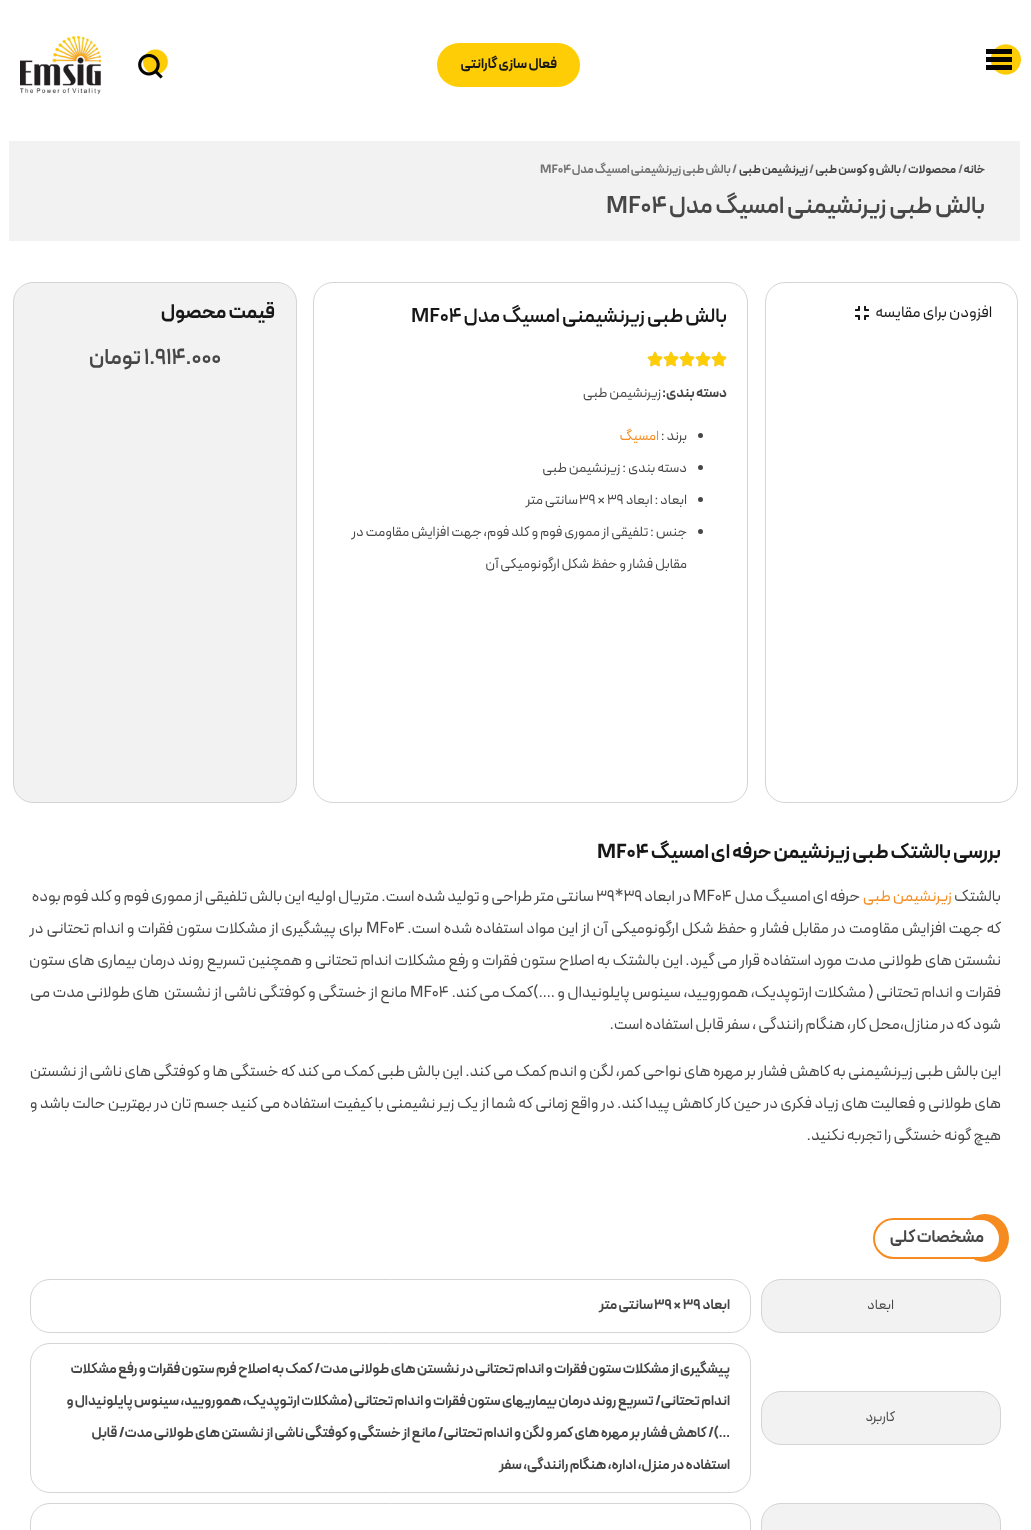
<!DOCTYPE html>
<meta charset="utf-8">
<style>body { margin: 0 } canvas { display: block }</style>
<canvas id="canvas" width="1031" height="1530"></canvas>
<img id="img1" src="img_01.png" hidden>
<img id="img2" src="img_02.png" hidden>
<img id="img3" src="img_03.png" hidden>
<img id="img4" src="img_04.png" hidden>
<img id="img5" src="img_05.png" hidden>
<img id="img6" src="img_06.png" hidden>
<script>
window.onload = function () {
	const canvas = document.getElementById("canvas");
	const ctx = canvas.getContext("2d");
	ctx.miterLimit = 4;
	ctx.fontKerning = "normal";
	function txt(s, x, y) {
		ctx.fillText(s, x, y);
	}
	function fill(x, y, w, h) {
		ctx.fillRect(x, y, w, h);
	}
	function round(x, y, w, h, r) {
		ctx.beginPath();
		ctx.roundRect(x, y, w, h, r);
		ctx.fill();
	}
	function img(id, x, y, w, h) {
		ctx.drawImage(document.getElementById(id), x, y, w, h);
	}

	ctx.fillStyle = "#FFFFFF";
	fill(0, 0, 1031, 1530);
	img("img1", 986, 44, 35, 31);
	ctx.fillStyle = "#FFCD05";
	round(437, 43, 143, 44, 22);
	img("img2", 138, 49, 30, 30);
	img("img3", 20, 36, 81, 58);
	ctx.fillStyle = "#F2F2F2";
	fill(9, 141, 1011, 100);
	ctx.beginPath();
	ctx.roundRect(765.5, 282.5, 252, 520, 19.5);
	ctx.strokeStyle = "#D4D4D4";
	ctx.stroke();
	img("img4", 855, 306, 14, 14);
	ctx.beginPath();
	ctx.roundRect(313.5, 282.5, 434, 520, 19.5);
	ctx.stroke();
	img("img5", 711, 351, 16, 16);
	img("img6", 711, 351, 16, 16);
	img("img5", 695, 351, 16, 16);
	img("img6", 695, 351, 16, 16);
	img("img5", 679, 351, 16, 16);
	img("img6", 679, 351, 16, 16);
	img("img5", 663, 351, 16, 16);
	img("img6", 663, 351, 16, 16);
	img("img5", 647, 351, 16, 16);
	img("img6", 647, 351, 16, 16);
	ctx.fillStyle = "#474747";
	ctx.beginPath();
	ctx.arc(700.5, 435.5, 2.5, 0, Math.PI * 2);
	ctx.fill();
	ctx.beginPath();
	ctx.arc(700.5, 467.5, 2.5, 0, Math.PI * 2);
	ctx.fill();
	ctx.beginPath();
	ctx.arc(700.5, 499.5, 2.5, 0, Math.PI * 2);
	ctx.fill();
	ctx.beginPath();
	ctx.arc(700.5, 531.5, 2.5, 0, Math.PI * 2);
	ctx.fill();
	ctx.fillStyle = "#F2F2F2";
	ctx.beginPath();
	ctx.roundRect(13.5, 282.5, 283, 520, 19.5);
	ctx.fill();
	ctx.stroke();
	ctx.fillStyle = "#F68B1F";
	ctx.beginPath();
	ctx.arc(985, 1238, 24, 0, Math.PI * 2);
	ctx.fill();
	ctx.fillStyle = "#FFFFFF";
	ctx.beginPath();
	ctx.roundRect(874, 1219, 126, 39, 19.5);
	ctx.fill();
	ctx.strokeStyle = "#F68B1F";
	ctx.lineWidth = 2;
	ctx.stroke();
	ctx.fillStyle = "#F2F2F2";
	ctx.beginPath();
	ctx.roundRect(761.5, 1279.5, 239, 53, 19.5);
	ctx.fill();
	ctx.strokeStyle = "#D4D4D4";
	ctx.lineWidth = 1;
	ctx.stroke();
	ctx.beginPath();
	ctx.roundRect(30.5, 1279.5, 720, 53, 19.5);
	ctx.stroke();
	ctx.beginPath();
	ctx.roundRect(761.5, 1391.5, 239, 53, 19.5);
	ctx.fill();
	ctx.stroke();
	ctx.beginPath();
	ctx.roundRect(30.5, 1343.5, 720, 149, 19.5);
	ctx.stroke();
	ctx.beginPath();
	ctx.roundRect(761.5, 1503.5, 239, 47, 19.5);
	ctx.fill();
	ctx.stroke();
	ctx.beginPath();
	ctx.roundRect(30.5, 1503.5, 720, 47, 19.5);
	ctx.stroke();
	ctx.direction = "rtl";
	ctx.font = "bold 14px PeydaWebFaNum";
	ctx.fillStyle = "#171717";
	txt("فعال سازی گارانتی", 557, 68);
	ctx.font = "bold 12px PeydaWebFaNum";
	ctx.fillStyle = "#474747";
	txt("خانه", 985, 173);
	ctx.direction = "ltr";
	ctx.fillStyle = "#737373";
	txt("/", 958, 173);
	ctx.direction = "rtl";
	ctx.fillStyle = "#474747";
	txt("محصولات", 956, 173);
	ctx.direction = "ltr";
	ctx.fillStyle = "#737373";
	txt("/", 902, 173);
	ctx.direction = "rtl";
	ctx.fillStyle = "#474747";
	txt("بالش و کوسن طبی", 901, 173);
	ctx.direction = "ltr";
	ctx.fillStyle = "#737373";
	txt("/", 809, 173);
	ctx.direction = "rtl";
	ctx.fillStyle = "#474747";
	txt("زیرنشیمن طبی", 808, 173);
	ctx.fillStyle = "#737373";
	txt("/ بالش طبی زیرنشیمنی امسیگ مدل", 737, 173);
	ctx.direction = "ltr";
	txt("MF04", 540, 173);
	ctx.direction = "rtl";
	ctx.font = "600 24px PeydaWebFaNum";
	ctx.fillStyle = "#474747";
	txt("بالش طبی زیرنشیمنی امسیگ مدل", 985, 213);
	ctx.direction = "ltr";
	txt("MF04", 606, 213);
	ctx.direction = "rtl";
	ctx.font = "16px PeydaWebFaNum";
	ctx.fillStyle = "#171717";
	txt("افزودن برای مقایسه", 992, 317);
	ctx.font = "600 20px PeydaWebFaNum";
	txt("بالش طبی زیرنشیمنی امسیگ مدل", 727, 322);
	ctx.direction = "ltr";
	txt("MF04", 411, 322);
	ctx.direction = "rtl";
	ctx.font = "bold 14px PeydaWebFaNum";
	ctx.fillStyle = "#474747";
	txt("دسته بندی:", 727, 397);
	ctx.font = "14px PeydaWebFaNum";
	txt("زیرنشیمن طبی", 661, 397);
	txt("برند :", 687, 440);
	ctx.fillStyle = "#F68B1F";
	txt("امسیگ", 659, 440);
	ctx.fillStyle = "#474747";
	txt("دسته بندی : زیرنشیمن طبی", 687, 472);
	txt("ابعاد : ابعاد", 687, 504);
	ctx.direction = "ltr";
	txt("39 × 39", 579, 504);
	ctx.direction = "rtl";
	txt("سانتی متر", 578, 504);
	txt("جنس : تلفیقی از مموری فوم و کلد فوم، جهت افزایش مقاومت در", 687, 536);
	txt("مقابل فشار و حفظ شکل ارگونومیکی آن", 687, 568);
	ctx.font = "bold 20px PeydaWebFaNum";
	ctx.fillStyle = "#171717";
	txt("قیمت محصول", 275, 318);
	ctx.direction = "ltr";
	ctx.font = "600 22px PeydaWebFaNum";
	ctx.fillStyle = "#474747";
	txt("1.914.000", 144, 364);
	ctx.direction = "rtl";
	txt("تومان", 141, 364);
	ctx.font = "bold 20px PeydaWebFaNum";
	ctx.fillStyle = "#171717";
	txt("بررسی بالشتک طبی زیرنشیمن حرفه ای امسیگ", 1001, 858);
	ctx.direction = "ltr";
	txt("MF04", 597, 858);
	ctx.direction = "rtl";
	ctx.font = "16px PeydaWebFaNum";
	ctx.fillStyle = "#474747";
	txt("بالشتک", 1001, 901);
	ctx.fillStyle = "#F68B1F";
	txt("زیرنشیمن طبی", 952, 901);
	ctx.fillStyle = "#474747";
	txt("حرفه ای امسیگ مدل", 860, 901);
	ctx.direction = "ltr";
	txt("MF04", 693, 901);
	ctx.direction = "rtl";
	txt("در ابعاد", 691, 901);
	ctx.direction = "ltr";
	txt("39*39", 596, 901);
	ctx.direction = "rtl";
	txt("سانتی متر طراحی و تولید شده است. متریال اولیه این بالش تلفیقی از مموری فوم و کلد فوم بوده", 594, 901);
	ctx.wordSpacing = "0.9px";
	txt("که جهت افزایش مقاومت در مقابل فشار و حفظ شکل ارگونومیکی آن از این مواد استفاده شده است.", 1001, 933);
	ctx.wordSpacing = "0px";
	ctx.direction = "ltr";
	txt("MF04", 366, 933);
	ctx.wordSpacing = "0.9px";
	ctx.direction = "rtl";
	txt("برای پیشگیری از مشکلات ستون فقرات و اندام تحتانی در", 363, 933);
	ctx.wordSpacing = "0.5px";
	txt("نشستن های طولانی مدت مورد استفاده قرار می گیرد. این بالشتک به اصلاح ستون فقرات و رفع مشکلات اندام تحتانی و همچنین تسریع روند درمان بیماری های ستون", 1001, 965);
	ctx.wordSpacing = "0.3px";
	txt("فقرات و اندام تحتانی ( مشکلات ارتوپدیک، همورویید، سینوس پایلونیدال و ….)کمک می کند.", 1001, 997);
	ctx.wordSpacing = "0px";
	ctx.direction = "ltr";
	txt("MF04", 410, 997);
	ctx.wordSpacing = "0.3px";
	ctx.direction = "rtl";
	txt("مانع از خستگی و کوفتگی ناشی از نشستن  های طولانی مدت می", 407, 997);
	ctx.wordSpacing = "0px";
	txt("شود که در منازل،محل کار، هنگام رانندگی ، سفر قابل استفاده است.", 1001, 1029);
	ctx.wordSpacing = "0.2px";
	txt("این بالش طبی زیرنشیمنی به کاهش فشار بر مهره های نواحی کمر، لگن و اندم کمک می کند. این بالش طبی کمک می کند که خستگی ها و کوفتگی های ناشی از نشستن", 1001, 1076);
	ctx.wordSpacing = "0.3px";
	txt("های طولانی و فعالیت های زیاد فکری در حین کار کاهش پیدا کند. در واقع زمانی که شما از یک زیر نشیمنی با کیفیت استفاده می کنید جسم تان در بهترین حالت باشد و", 1001, 1108);
	ctx.wordSpacing = "0px";
	txt("هیچ گونه خستگی را تجربه نکنید.", 1001, 1140);
	ctx.font = "bold 17px PeydaWebFaNum";
	txt("مشخصات کلی", 984, 1242);
	ctx.font = "14px PeydaWebFaNum";
	txt("ابعاد", 894, 1309);
	ctx.font = "bold 14px PeydaWebFaNum";
	txt("ابعاد", 730, 1309);
	ctx.direction = "ltr";
	txt("39 × 39", 654, 1309);
	ctx.direction = "rtl";
	txt("سانتی متر", 653, 1309);
	ctx.font = "14px PeydaWebFaNum";
	txt("کاربرد", 895, 1421);
	ctx.font = "bold 14px PeydaWebFaNum";
	txt("پیشگیری از مشکلات ستون فقرات و اندام تحتانی در نشستن های طولانی مدت/ کمک به اصلاح فرم ستون فقرات و رفع مشکلات", 730, 1373);
	txt("اندام تحتانی/ تسریع روند درمان بیماریهای ستون فقرات و اندام تحتانی (مشکلات ارتوپدیک، همورویید، سینوس پایلونیدال و", 730, 1405);
	txt("...)/ کاهش فشار بر مهره های کمر و لگن و اندام تحتانی/ مانع از خستگی و کوفتگی ناشی از نشستن های طولانی مدت/ قابل", 730, 1437);
	txt("استفاده در منزل، اداره، هنگام رانندگی، سفر", 730, 1469);
};
</script>
